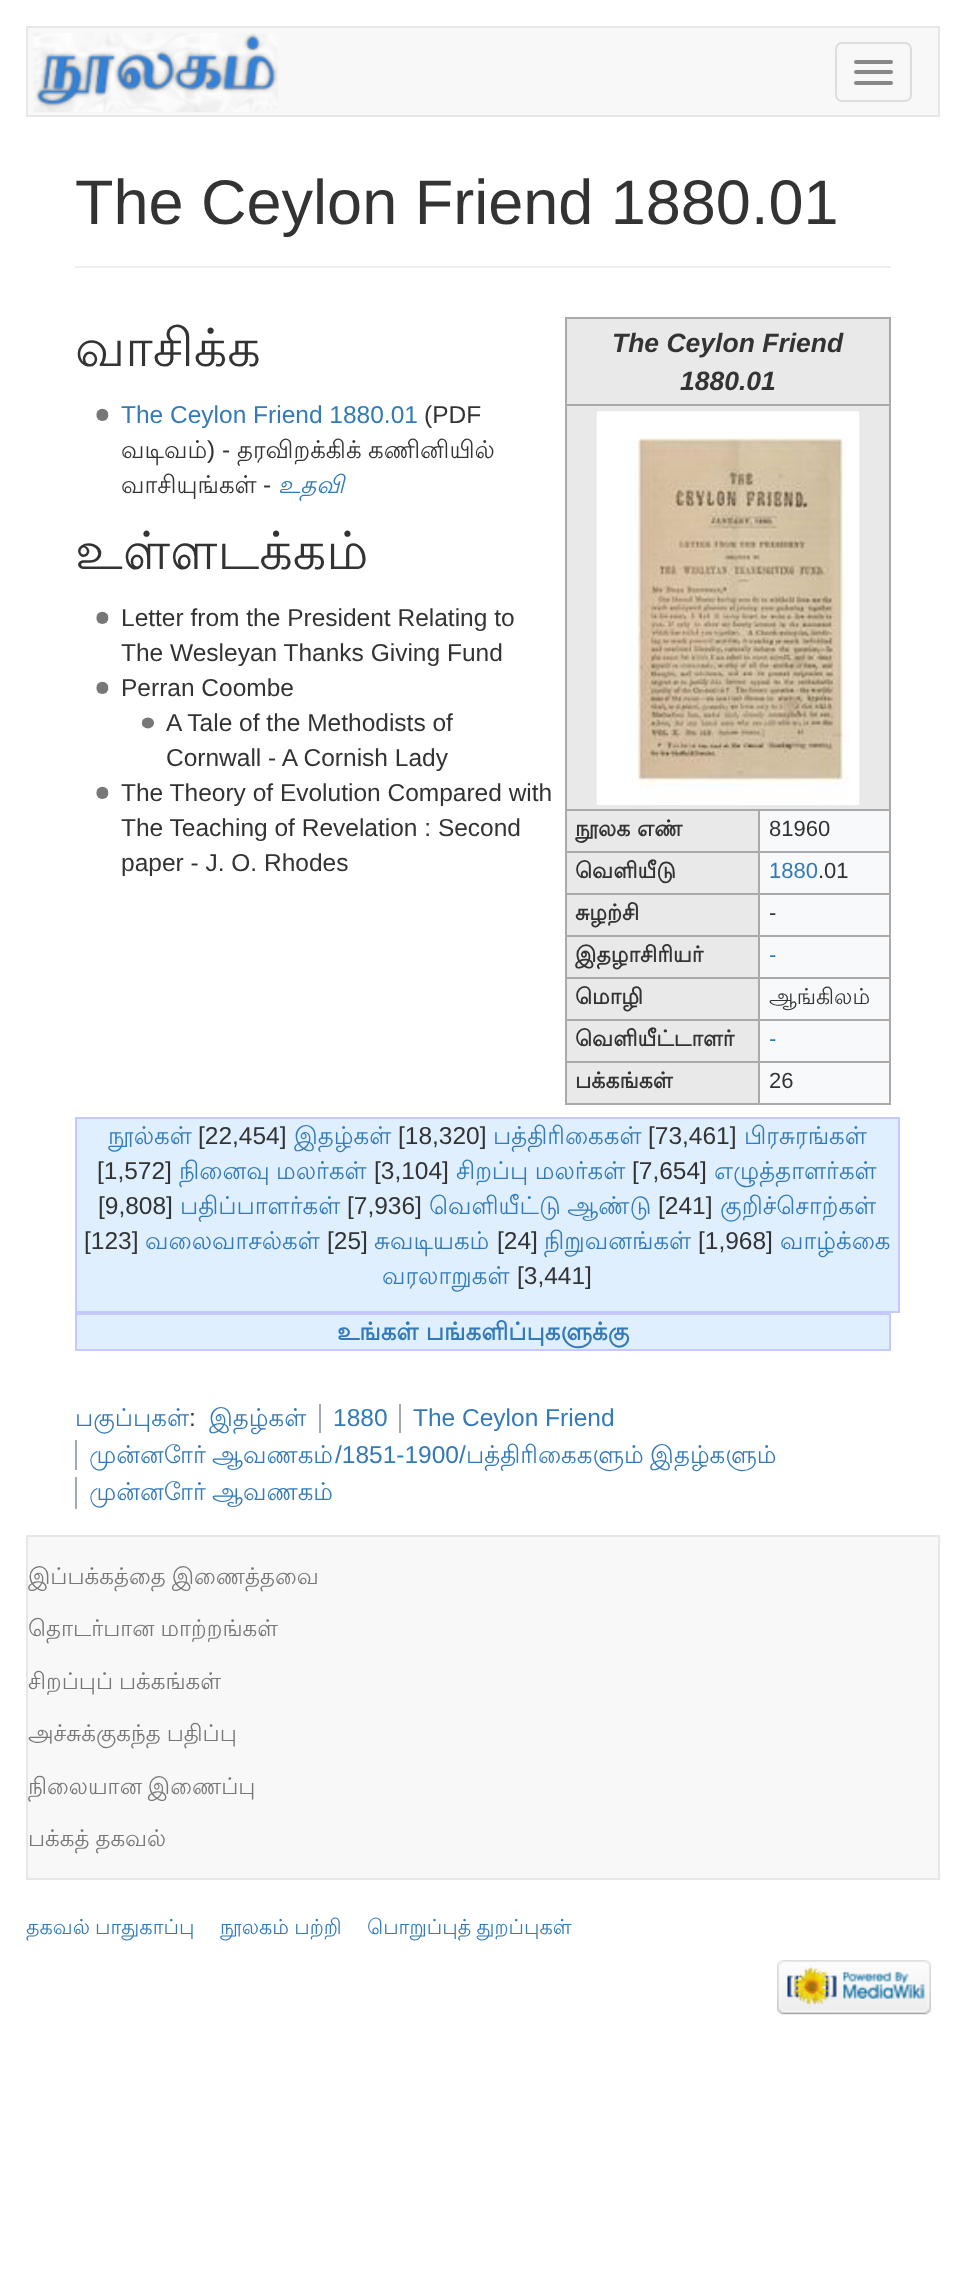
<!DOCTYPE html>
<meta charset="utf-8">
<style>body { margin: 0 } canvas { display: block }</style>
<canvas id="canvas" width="965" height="2294"></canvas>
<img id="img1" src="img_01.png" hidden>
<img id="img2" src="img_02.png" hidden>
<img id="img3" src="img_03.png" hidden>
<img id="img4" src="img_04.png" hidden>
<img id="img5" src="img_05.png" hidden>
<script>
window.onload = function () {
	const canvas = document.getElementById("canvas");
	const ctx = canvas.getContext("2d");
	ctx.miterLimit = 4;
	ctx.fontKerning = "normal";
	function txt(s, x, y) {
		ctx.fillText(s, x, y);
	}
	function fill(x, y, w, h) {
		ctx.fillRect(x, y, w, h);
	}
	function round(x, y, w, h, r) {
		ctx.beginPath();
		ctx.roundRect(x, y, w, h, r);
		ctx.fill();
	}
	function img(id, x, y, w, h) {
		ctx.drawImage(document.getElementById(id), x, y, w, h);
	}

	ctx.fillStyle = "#FFFFFF";
	fill(0, 0, 965, 2294);
	ctx.fillStyle = "#F8F8F8";
	ctx.beginPath();
	ctx.rect(27, 27, 912, 89);
	ctx.fill();
	ctx.strokeStyle = "#E7E7E7";
	ctx.lineWidth = 2;
	ctx.stroke();
	img("img1", 33, 33, 245, 79);
	ctx.beginPath();
	ctx.roundRect(836, 43, 75, 58, 6);
	ctx.strokeStyle = "#DDDDDD";
	ctx.stroke();
	ctx.fillStyle = "#888888";
	round(854, 60, 39, 4, 2);
	round(854, 70, 39, 4, 2);
	round(854, 81, 39, 4, 2);
	ctx.fillStyle = "#EEEEEE";
	fill(75, 266, 816, 2);
	ctx.fillStyle = "#F8F9FA";
	fill(760, 811, 129, 292);
	ctx.fillStyle = "#E9E9E9";
	fill(567, 319, 322, 85);
	ctx.fillStyle = "#AAAAAA";
	fill(565, 317, 326, 2);
	fill(565, 404, 326, 2);
	fill(758, 809, 133, 2);
	fill(758, 851, 133, 2);
	fill(758, 893, 133, 2);
	fill(758, 935, 133, 2);
	fill(758, 977, 133, 2);
	fill(758, 1019, 133, 2);
	fill(758, 1061, 133, 2);
	fill(889, 1061, 2, 43);
	fill(889, 1019, 2, 43);
	fill(889, 977, 2, 43);
	fill(889, 935, 2, 43);
	fill(889, 893, 2, 43);
	fill(889, 851, 2, 43);
	fill(889, 809, 2, 43);
	fill(889, 404, 2, 406);
	fill(889, 317, 2, 89);
	fill(758, 1103, 133, 2);
	fill(758, 1061, 2, 43);
	fill(565, 1061, 195, 2);
	fill(758, 1019, 2, 43);
	fill(565, 1019, 195, 2);
	fill(758, 977, 2, 43);
	fill(565, 977, 195, 2);
	fill(758, 935, 2, 43);
	fill(565, 935, 195, 2);
	fill(758, 893, 2, 43);
	fill(565, 893, 195, 2);
	fill(758, 851, 2, 43);
	fill(565, 851, 195, 2);
	fill(758, 809, 2, 43);
	fill(565, 809, 195, 2);
	fill(565, 1103, 195, 2);
	fill(565, 1061, 2, 43);
	fill(565, 1019, 2, 43);
	fill(565, 977, 2, 43);
	fill(565, 935, 2, 43);
	fill(565, 893, 2, 43);
	fill(565, 851, 2, 43);
	fill(565, 809, 2, 43);
	fill(565, 404, 2, 406);
	fill(565, 317, 2, 89);
	ctx.fillStyle = "#E9E9E9";
	fill(567, 406, 322, 403);
	img("img2", 596, 411, 264, 394);
	fill(567, 811, 191, 40);
	fill(567, 853, 191, 40);
	fill(567, 895, 191, 40);
	fill(567, 937, 191, 40);
	fill(567, 979, 191, 40);
	fill(567, 1021, 191, 40);
	fill(567, 1063, 191, 40);
	img("img3", 96, 408, 13, 13);
	img("img3", 96, 611, 13, 13);
	img("img3", 96, 681, 13, 13);
	img("img4", 142, 717, 12, 12);
	img("img3", 96, 786, 13, 13);
	ctx.fillStyle = "#DFEFFE";
	fill(77, 1119, 821, 192);
	ctx.fillStyle = "#C6C9FF";
	fill(75, 1117, 825, 2);
	fill(898, 1117, 2, 196);
	fill(75, 1311, 825, 2);
	fill(75, 1117, 2, 196);
	ctx.fillStyle = "#DFEFFE";
	fill(77, 1315, 812, 34);
	ctx.fillStyle = "#C6C9FF";
	fill(75, 1313, 816, 2);
	fill(889, 1313, 2, 38);
	fill(75, 1349, 816, 2);
	fill(75, 1313, 2, 38);
	ctx.fillStyle = "#A2A9B1";
	fill(319, 1404, 2, 29);
	fill(399, 1404, 2, 29);
	fill(75, 1440, 2, 30);
	fill(75, 1477, 2, 32);
	ctx.fillStyle = "#F8F8F8";
	ctx.beginPath();
	ctx.rect(27, 1536, 912, 343);
	ctx.fill();
	ctx.strokeStyle = "#E7E7E7";
	ctx.stroke();
	img("img5", 777, 1960, 154, 55);
	ctx.font = "63px Liberation Sans";
	ctx.fillStyle = "#333333";
	txt("The Ceylon Friend 1880.01", 75, 224);
	ctx.font = "52.5px Lohit Tamil";
	txt("வாசிக்க", 75, 366);
	ctx.font = "italic bold 26.5px Liberation Sans";
	txt("The Ceylon Friend", 612, 352);
	txt("1880.01", 680, 390);
	ctx.font = "bold 22px Lohit Tamil";
	txt("நூலக எண்", 575, 836);
	ctx.font = "22px Liberation Sans";
	txt("81960", 769, 836);
	ctx.font = "bold 22px Lohit Tamil";
	txt("வெளியீடு", 575, 878);
	ctx.font = "22px Liberation Sans";
	ctx.fillStyle = "#337AB7";
	txt("1880", 769, 878);
	ctx.fillStyle = "#333333";
	txt(".01", 818, 878);
	ctx.font = "bold 22px Lohit Tamil";
	txt("சுழற்சி", 575, 920);
	ctx.font = "22px Liberation Sans";
	txt("-", 769, 920);
	ctx.font = "bold 22px Lohit Tamil";
	txt("இதழாசிரியர்", 575, 962);
	ctx.font = "22px Liberation Sans";
	ctx.fillStyle = "#337AB7";
	txt("-", 769, 962);
	ctx.font = "bold 22px Lohit Tamil";
	ctx.fillStyle = "#333333";
	txt("மொழி", 575, 1004);
	ctx.font = "22px Lohit Tamil";
	txt("ஆங்கிலம்", 769, 1004);
	ctx.font = "bold 22px Lohit Tamil";
	txt("வெளியீட்டாளர்", 575, 1046);
	ctx.font = "22px Liberation Sans";
	ctx.fillStyle = "#337AB7";
	txt("-", 769, 1046);
	ctx.font = "bold 22px Lohit Tamil";
	ctx.fillStyle = "#333333";
	txt("பக்கங்கள்", 575, 1088);
	ctx.font = "22px Liberation Sans";
	txt("26", 769, 1088);
	ctx.font = "24.5px Liberation Sans";
	ctx.fillStyle = "#337AB7";
	txt("The Ceylon Friend 1880.01", 121, 423);
	ctx.fillStyle = "#333333";
	txt("(PDF", 424, 423);
	ctx.font = "24.5px Lohit Tamil";
	txt("வடிவம்", 121, 458);
	ctx.font = "24.5px Liberation Sans";
	txt(") -", 207, 458);
	ctx.font = "24.5px Lohit Tamil";
	txt("தரவிறக்கிக்", 237, 458);
	txt("கணினியில்", 368, 458);
	txt("வாசியுங்கள்", 121, 493);
	ctx.font = "24.5px Liberation Sans";
	txt("-", 263, 493);
	ctx.font = "italic 24.5px Lohit Tamil";
	ctx.fillStyle = "#337AB7";
	txt("உதவி", 278, 493);
	ctx.font = "52.5px Lohit Tamil";
	ctx.fillStyle = "#333333";
	txt("உள்ளடக்கம்", 75, 569);
	ctx.font = "24.5px Liberation Sans";
	txt("Letter from the President Relating to", 121, 626);
	txt("The Wesleyan Thanks Giving Fund", 121, 661);
	txt("Perran Coombe", 121, 696);
	txt("A Tale of the Methodists of", 166, 731);
	txt("Cornwall - A Cornish Lady", 166, 766);
	txt("The Theory of Evolution Compared with", 121, 801);
	txt("The Teaching of Revelation : Second", 121, 836);
	txt("paper - J. O. Rhodes", 121, 871);
	ctx.font = "24.5px Lohit Tamil";
	ctx.fillStyle = "#337AB7";
	txt("நூல்கள்", 108, 1144);
	ctx.font = "24.5px Liberation Sans";
	ctx.fillStyle = "#333333";
	txt("[22,454]", 198, 1144);
	ctx.font = "24.5px Lohit Tamil";
	ctx.fillStyle = "#337AB7";
	txt("இதழ்கள்", 294, 1144);
	ctx.font = "24.5px Liberation Sans";
	ctx.fillStyle = "#333333";
	txt("[18,320]", 398, 1144);
	ctx.font = "24.5px Lohit Tamil";
	ctx.fillStyle = "#337AB7";
	txt("பத்திரிகைகள்", 493, 1144);
	ctx.font = "24.5px Liberation Sans";
	ctx.fillStyle = "#333333";
	txt("[73,461]", 648, 1144);
	ctx.font = "24.5px Lohit Tamil";
	ctx.fillStyle = "#337AB7";
	txt("பிரசுரங்கள்", 744, 1144);
	ctx.font = "24.5px Liberation Sans";
	ctx.fillStyle = "#333333";
	txt("[1,572]", 97, 1179);
	ctx.wordSpacing = "-1px";
	ctx.font = "24.5px Lohit Tamil";
	ctx.fillStyle = "#337AB7";
	txt("நினைவு மலர்கள்", 179, 1179);
	ctx.wordSpacing = "0px";
	ctx.font = "24.5px Liberation Sans";
	ctx.fillStyle = "#333333";
	txt("[3,104]", 374, 1179);
	ctx.wordSpacing = "-1px";
	ctx.font = "24.5px Lohit Tamil";
	ctx.fillStyle = "#337AB7";
	txt("சிறப்பு மலர்கள்", 456, 1179);
	ctx.wordSpacing = "0px";
	ctx.font = "24.5px Liberation Sans";
	ctx.fillStyle = "#333333";
	txt("[7,654]", 632, 1179);
	ctx.font = "24.5px Lohit Tamil";
	ctx.fillStyle = "#337AB7";
	txt("எழுத்தாளர்கள்", 714, 1179);
	ctx.font = "24.5px Liberation Sans";
	ctx.fillStyle = "#333333";
	txt("[9,808]", 98, 1214);
	ctx.font = "24.5px Lohit Tamil";
	ctx.fillStyle = "#337AB7";
	txt("பதிப்பாளர்கள்", 180, 1214);
	ctx.font = "24.5px Liberation Sans";
	ctx.fillStyle = "#333333";
	txt("[7,936]", 347, 1214);
	ctx.wordSpacing = "-1px";
	ctx.font = "24.5px Lohit Tamil";
	ctx.fillStyle = "#337AB7";
	txt("வெளியீட்டு ஆண்டு", 429, 1214);
	ctx.wordSpacing = "0px";
	ctx.font = "24.5px Liberation Sans";
	ctx.fillStyle = "#333333";
	txt("[241]", 658, 1214);
	ctx.font = "24.5px Lohit Tamil";
	ctx.fillStyle = "#337AB7";
	txt("குறிச்சொற்கள்", 720, 1214);
	ctx.font = "24.5px Liberation Sans";
	ctx.fillStyle = "#333333";
	txt("[123]", 84, 1249);
	ctx.font = "24.5px Lohit Tamil";
	ctx.fillStyle = "#337AB7";
	txt("வலைவாசல்கள்", 145, 1249);
	ctx.font = "24.5px Liberation Sans";
	ctx.fillStyle = "#333333";
	txt("[25]", 327, 1249);
	ctx.font = "24.5px Lohit Tamil";
	ctx.fillStyle = "#337AB7";
	txt("சுவடியகம்", 374, 1249);
	ctx.font = "24.5px Liberation Sans";
	ctx.fillStyle = "#333333";
	txt("[24]", 497, 1249);
	ctx.font = "24.5px Lohit Tamil";
	ctx.fillStyle = "#337AB7";
	txt("நிறுவனங்கள்", 544, 1249);
	ctx.font = "24.5px Liberation Sans";
	ctx.fillStyle = "#333333";
	txt("[1,968]", 698, 1249);
	ctx.font = "24.5px Lohit Tamil";
	ctx.fillStyle = "#337AB7";
	txt("வாழ்க்கை", 780, 1249);
	txt("வரலாறுகள்", 382, 1284);
	ctx.font = "24.5px Liberation Sans";
	ctx.fillStyle = "#333333";
	txt("[3,441]", 517, 1284);
	ctx.font = "bold 24.5px Lohit Tamil";
	ctx.fillStyle = "#337AB7";
	txt("உங்கள் பங்களிப்புகளுக்கு", 337, 1340);
	ctx.font = "24.5px Lohit Tamil";
	txt("இதழ்கள்", 209, 1426);
	ctx.font = "24.5px Liberation Sans";
	txt("1880", 333, 1426);
	txt("The Ceylon Friend", 413, 1426);
	ctx.wordSpacing = "-1px";
	ctx.font = "24.5px Lohit Tamil";
	txt("முன்னோர் ஆவணகம்", 89, 1463);
	ctx.wordSpacing = "0px";
	ctx.font = "24.5px Liberation Sans";
	txt("/1851-1900/", 335, 1463);
	ctx.wordSpacing = "-1px";
	ctx.font = "24.5px Lohit Tamil";
	txt("பத்திரிகைகளும் இதழ்களும்", 466, 1463);
	txt("முன்னோர் ஆவணகம்", 89, 1500);
	ctx.wordSpacing = "0px";
	txt("பகுப்புகள்", 75, 1426);
	ctx.font = "24.5px Liberation Sans";
	ctx.fillStyle = "#333333";
	txt(":", 189, 1426);
	ctx.wordSpacing = "-1px";
	ctx.font = "23px Lohit Tamil";
	ctx.fillStyle = "#777777";
	txt("இப்பக்கத்தை இணைத்தவை", 28, 1584);
	txt("தொடர்பான மாற்றங்கள்", 28, 1636);
	txt("சிறப்புப் பக்கங்கள்", 28, 1689);
	txt("அச்சுக்குகந்த பதிப்பு", 28, 1741);
	txt("நிலையான இணைப்பு", 28, 1794);
	txt("பக்கத் தகவல்", 28, 1846);
	ctx.font = "20.75px Lohit Tamil";
	ctx.fillStyle = "#337AB7";
	txt("தகவல் பாதுகாப்பு", 26, 1934);
	txt("நூலகம் பற்றி", 220, 1934);
	txt("பொறுப்புத் துறப்புகள்", 367, 1934);
};
</script>
